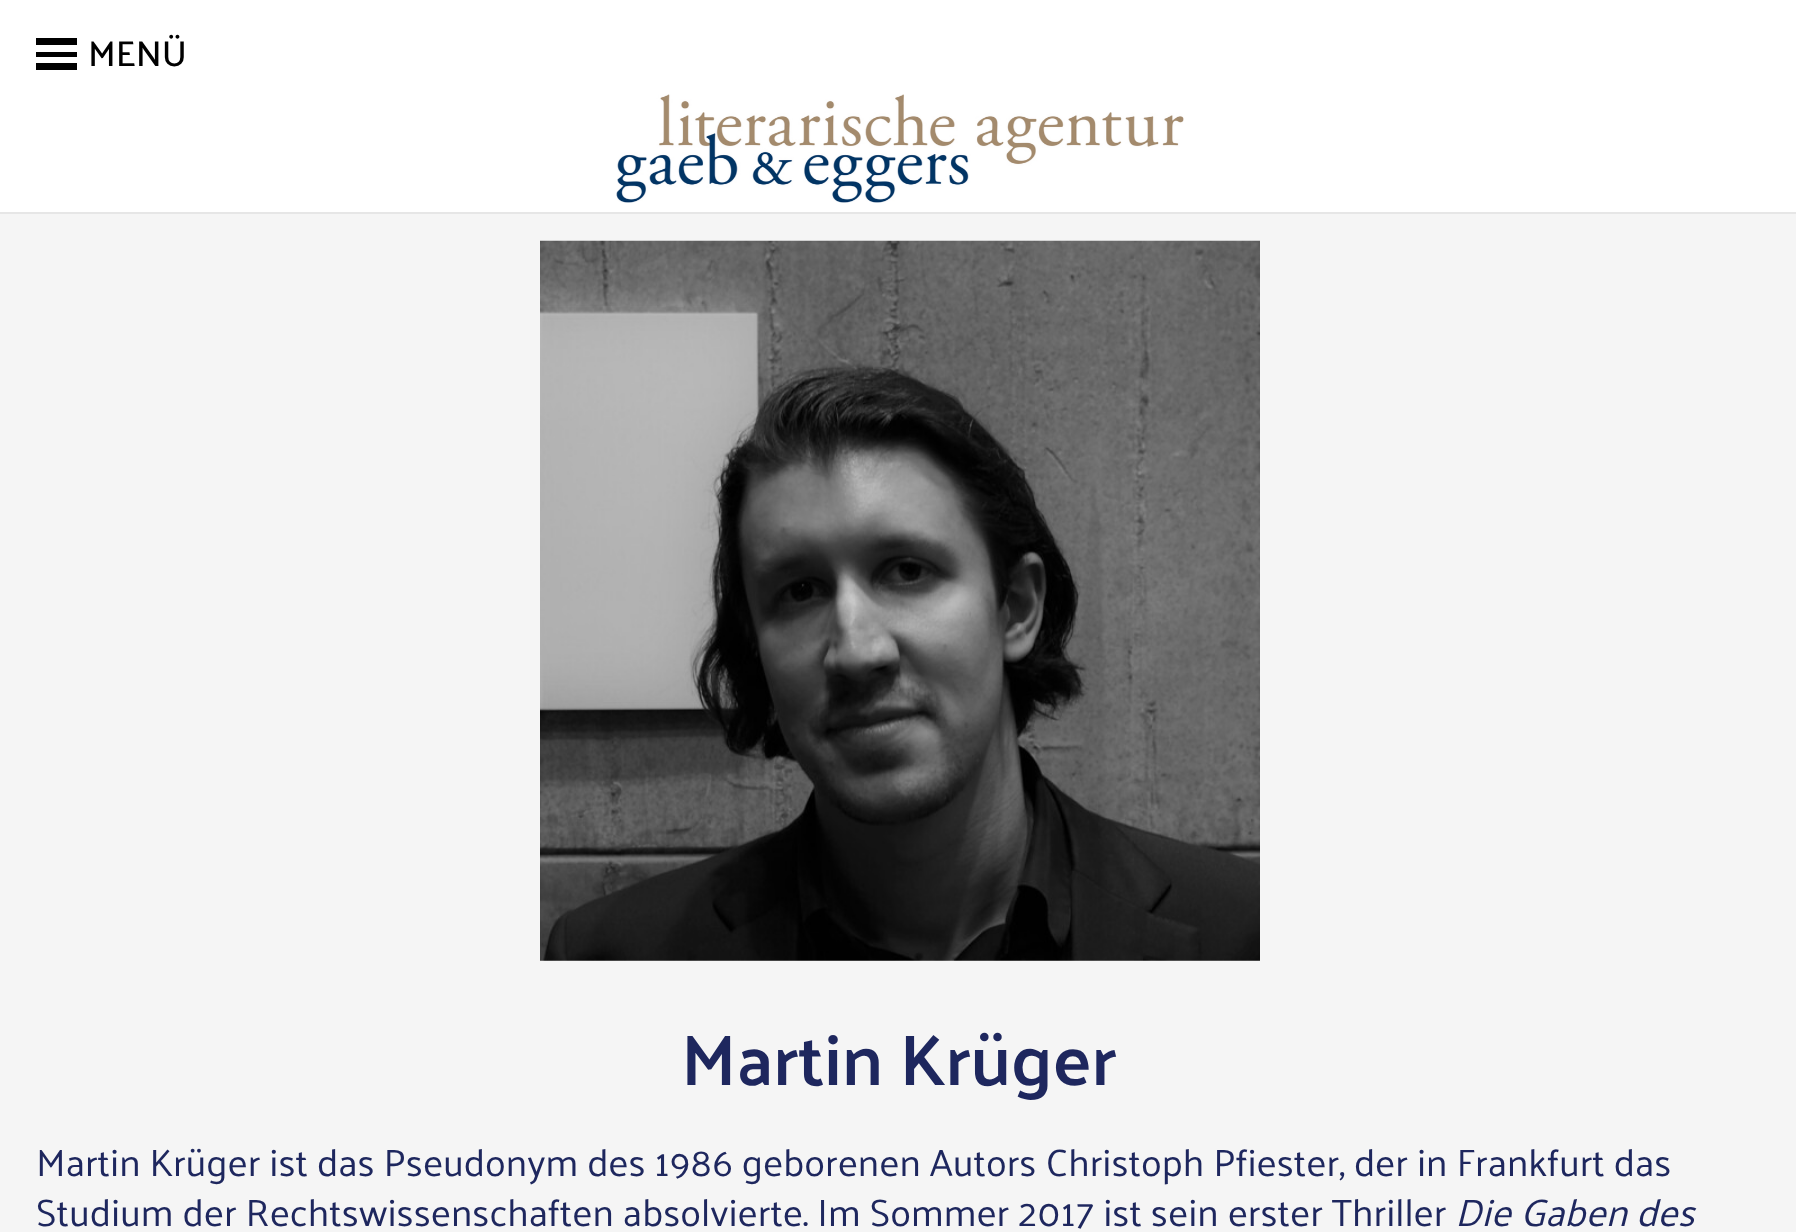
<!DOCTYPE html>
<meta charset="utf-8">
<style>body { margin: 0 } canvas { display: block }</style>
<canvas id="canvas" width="1796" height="1232"></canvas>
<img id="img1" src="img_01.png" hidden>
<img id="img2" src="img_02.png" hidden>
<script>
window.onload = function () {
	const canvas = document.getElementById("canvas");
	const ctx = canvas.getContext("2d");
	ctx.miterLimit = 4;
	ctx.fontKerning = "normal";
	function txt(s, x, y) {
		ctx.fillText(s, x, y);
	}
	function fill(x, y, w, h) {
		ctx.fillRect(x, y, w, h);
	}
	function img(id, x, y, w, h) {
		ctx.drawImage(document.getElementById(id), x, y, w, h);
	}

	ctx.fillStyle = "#F5F5F5";
	fill(0, 0, 1796, 1232);
	ctx.fillStyle = "#FFFFFF";
	fill(0, 0, 1796, 212);
	ctx.fillStyle = "#E6E6E6";
	fill(0, 212, 1796, 2);
	ctx.fillStyle = "#000000";
	fill(36, 38, 41, 7);
	fill(36, 52, 41, 5);
	fill(36, 63, 41, 7);
	img("img1", 616, 94, 568, 109);
	img("img2", 540, 240, 720, 721);
	ctx.font = "500 36px Palanquin";
	txt("MENÜ", 88, 66);
	ctx.font = "600 72px Palanquin";
	ctx.fillStyle = "#1E275E";
	txt("Martin Krüger", 681, 1085);
	ctx.font = "38.25px Palanquin";
	txt("Martin Krüger ist das Pseudonym des 1986 geborenen Autors Christoph Pfiester, der in Frankfurt das", 36, 1176);
	txt("Studium der Rechtswissenschaften absolvierte. Im Sommer 2017 ist sein erster Thriller", 36, 1226);
	ctx.font = "italic 38.25px Palanquin";
	txt("Die Gaben des", 1455, 1226);
};
</script>
